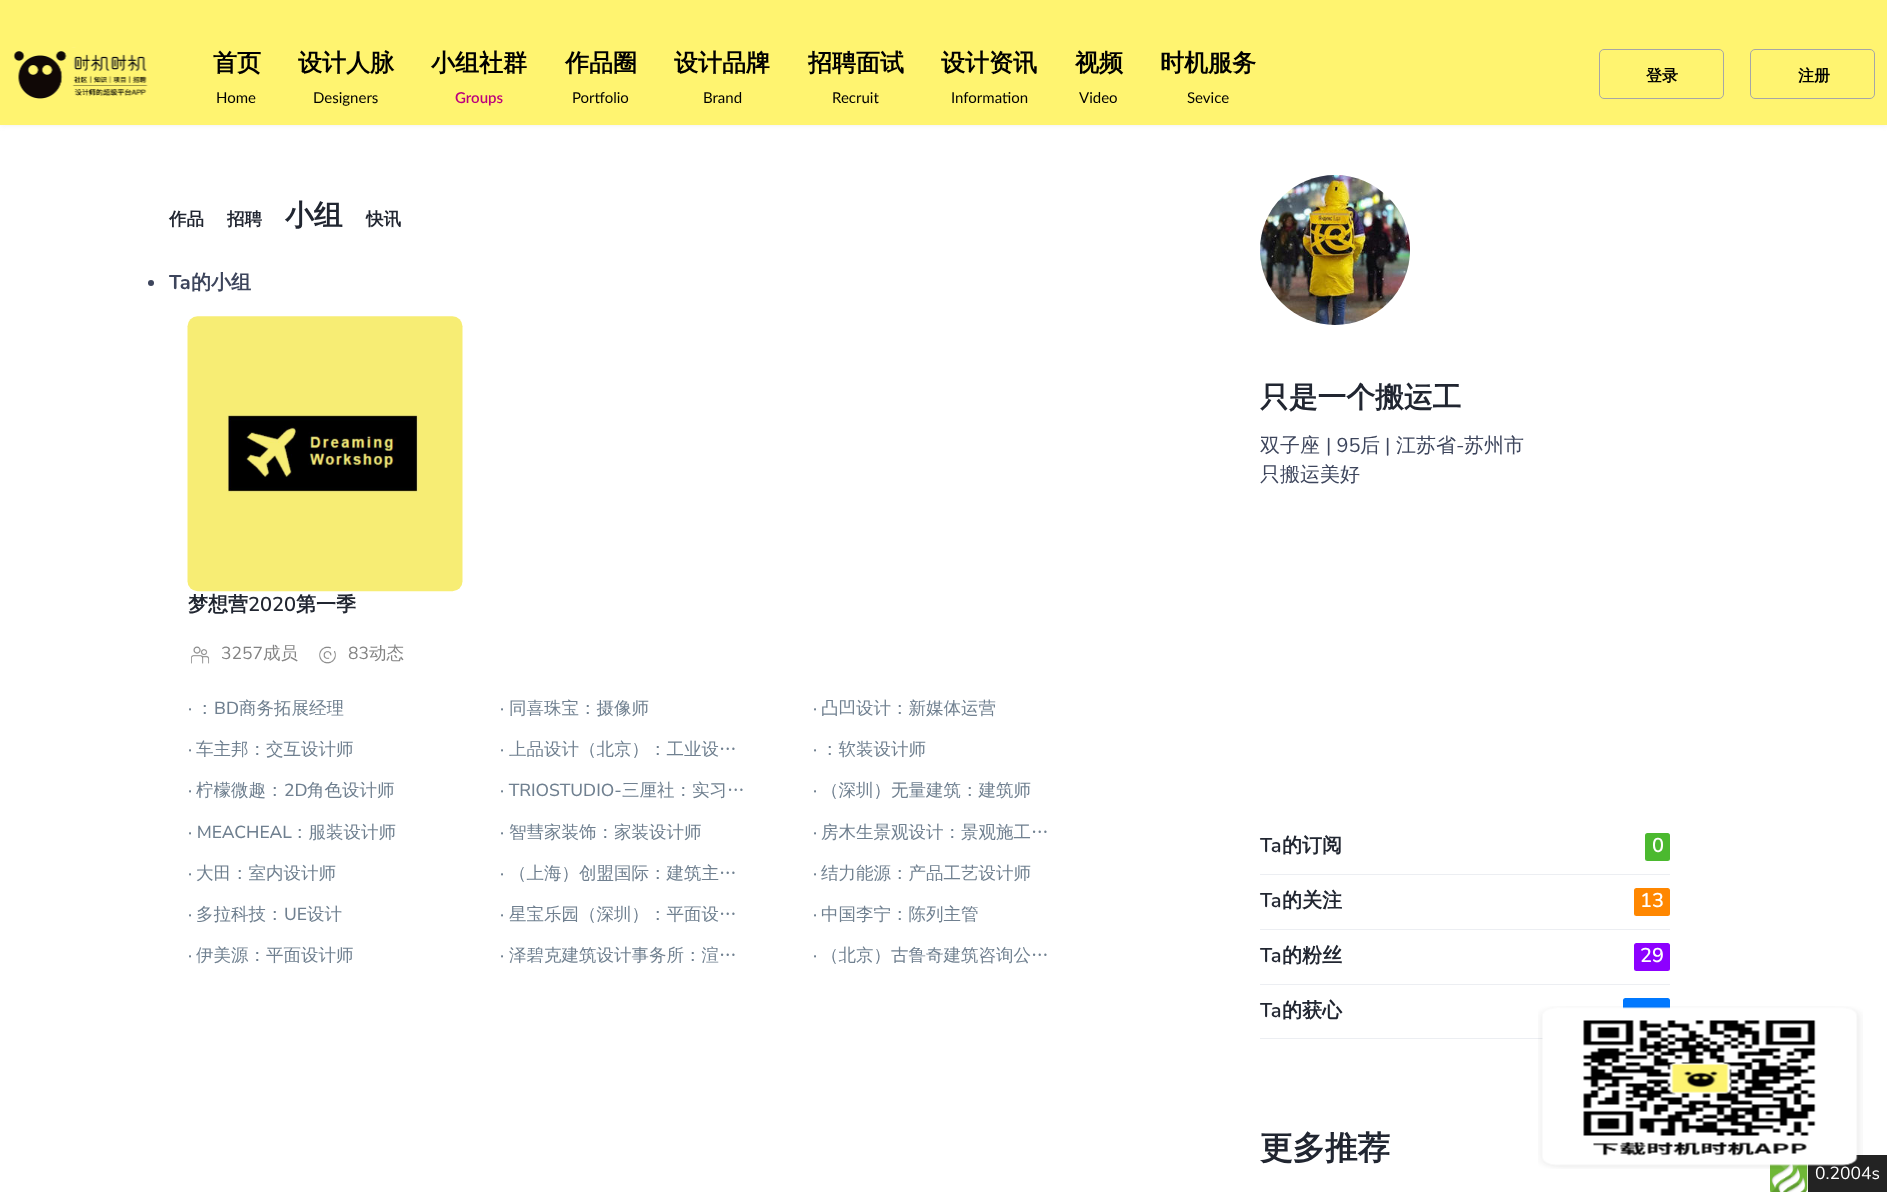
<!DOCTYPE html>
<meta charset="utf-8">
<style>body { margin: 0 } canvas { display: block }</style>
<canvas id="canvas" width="1887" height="1192"></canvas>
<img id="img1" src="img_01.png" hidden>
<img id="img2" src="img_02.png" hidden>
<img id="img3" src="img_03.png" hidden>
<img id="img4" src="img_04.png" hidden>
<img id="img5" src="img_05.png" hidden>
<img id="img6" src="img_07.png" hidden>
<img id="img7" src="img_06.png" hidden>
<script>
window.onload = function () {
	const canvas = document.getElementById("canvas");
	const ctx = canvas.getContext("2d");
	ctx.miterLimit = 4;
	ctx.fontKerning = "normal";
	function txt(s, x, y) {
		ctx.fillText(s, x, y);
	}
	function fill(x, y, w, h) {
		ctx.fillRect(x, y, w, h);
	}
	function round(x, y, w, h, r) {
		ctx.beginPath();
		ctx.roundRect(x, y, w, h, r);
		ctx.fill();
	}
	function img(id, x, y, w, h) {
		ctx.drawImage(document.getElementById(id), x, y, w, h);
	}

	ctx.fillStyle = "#FFFFFF";
	fill(0, 0, 1887, 1192);
	ctx.fillStyle = "#F2F2F2";
	ctx.filter = "blur(2.5px)";
	ctx.beginPath();
	ctx.rect(0, 1, 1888, 125);
	ctx.fill();
	ctx.filter = "none";
	ctx.fillStyle = "#FFF470";
	fill(0, 0, 1887, 125);
	img("img1", 13, 47, 135, 52);
	ctx.beginPath();
	ctx.roundRect(1599.5, 49.5, 124, 49, 4.5);
	ctx.strokeStyle = "#A6A6A6";
	ctx.stroke();
	ctx.beginPath();
	ctx.roundRect(1750.5, 49.5, 124, 49, 4.5);
	ctx.stroke();
	ctx.fillStyle = "#3D455C";
	ctx.beginPath();
	ctx.arc(151, 283, 3, 0, Math.PI * 2);
	ctx.fill();
	img("img2", 187, 316, 276, 276);
	img("img3", 191, 646, 19, 18);
	img("img4", 319, 646, 17, 18);
	img("img5", 1260, 175, 150, 150);
	ctx.fillStyle = "#ECEEF2";
	fill(1260, 874, 410, 1);
	ctx.fillStyle = "#4BB92F";
	round(1645, 833, 25, 28, 2.5);
	ctx.fillStyle = "#ECEEF2";
	fill(1260, 929, 410, 1);
	ctx.fillStyle = "#FF8700";
	round(1634, 888, 36, 28, 2.5);
	ctx.fillStyle = "#ECEEF2";
	fill(1260, 984, 410, 1);
	ctx.fillStyle = "#8D00FF";
	round(1634, 943, 36, 28, 2.5);
	ctx.fillStyle = "#ECEEF2";
	fill(1260, 1038, 283, 1);
	ctx.fillStyle = "#0078FF";
	round(1623, 998, 47, 27, 2.5);
	img("img6", 1770, 1164, 38, 28);
	ctx.fillStyle = "#232323";
	fill(1808, 1155, 79, 37);
	ctx.font = "bold 24px WenQuanYi Zen Hei";
	ctx.fillStyle = "#000000";
	txt("首页", 213, 71);
	ctx.font = "15px Lato";
	txt("Home", 216, 103);
	ctx.font = "bold 24px WenQuanYi Zen Hei";
	txt("设计人脉", 298, 71);
	ctx.font = "15px Lato";
	txt("Designers", 313, 103);
	ctx.font = "bold 24px WenQuanYi Zen Hei";
	txt("小组社群", 431, 71);
	ctx.font = "600 15px Lato";
	ctx.fillStyle = "#BC007D";
	txt("Groups", 455, 103);
	ctx.font = "bold 24px WenQuanYi Zen Hei";
	ctx.fillStyle = "#000000";
	txt("作品圈", 565, 71);
	ctx.font = "15px Lato";
	txt("Portfolio", 572, 103);
	ctx.font = "bold 24px WenQuanYi Zen Hei";
	txt("设计品牌", 674, 71);
	ctx.font = "15px Lato";
	txt("Brand", 703, 103);
	ctx.font = "bold 24px WenQuanYi Zen Hei";
	txt("招聘面试", 808, 71);
	ctx.font = "15px Lato";
	txt("Recruit", 832, 103);
	ctx.font = "bold 24px WenQuanYi Zen Hei";
	txt("设计资讯", 941, 71);
	ctx.font = "15px Lato";
	txt("Information", 951, 103);
	ctx.font = "bold 24px WenQuanYi Zen Hei";
	txt("视频", 1075, 71);
	ctx.font = "15px Lato";
	txt("Video", 1079, 103);
	ctx.font = "bold 24px WenQuanYi Zen Hei";
	txt("时机服务", 1160, 71);
	ctx.font = "15px Lato";
	txt("Sevice", 1187, 103);
	ctx.font = "bold 16px WenQuanYi Zen Hei";
	txt("登录", 1646, 81);
	txt("注册", 1798, 81);
	ctx.font = "bold 17.5px WenQuanYi Zen Hei";
	ctx.fillStyle = "#212631";
	txt("作品", 169, 225);
	txt("招聘", 227, 225);
	ctx.font = "bold 28.75px WenQuanYi Zen Hei";
	txt("小组", 285, 225);
	ctx.font = "bold 17.5px WenQuanYi Zen Hei";
	txt("快讯", 366, 225);
	ctx.font = "bold 20px Nunito";
	ctx.fillStyle = "#3D455C";
	txt("Ta", 169, 289);
	ctx.font = "bold 20px WenQuanYi Zen Hei";
	txt("的小组", 191, 289);
	ctx.fillStyle = "#212631";
	txt("梦想营", 188, 611);
	ctx.font = "600 20px Nunito";
	txt("2020", 248, 611);
	ctx.font = "bold 20px WenQuanYi Zen Hei";
	txt("第一季", 296, 611);
	ctx.font = "17.5px Nunito";
	ctx.fillStyle = "#848484";
	txt("3257", 221, 659);
	ctx.font = "500 17.5px WenQuanYi Zen Hei";
	txt("成员", 263, 659);
	ctx.font = "17.5px Nunito";
	txt("83", 348, 659);
	ctx.font = "500 17.5px WenQuanYi Zen Hei";
	txt("动态", 369, 659);
	ctx.font = "500 17.5px Nunito Sans";
	ctx.fillStyle = "#708090";
	txt("·", 188, 714);
	ctx.font = "500 17.5px WenQuanYi Zen Hei";
	txt("：", 196, 714);
	ctx.font = "500 17.5px Nunito Sans";
	txt("BD", 214, 714);
	ctx.font = "500 17.5px WenQuanYi Zen Hei";
	txt("商务拓展经理", 239, 714);
	ctx.font = "500 17.5px Nunito Sans";
	txt("·", 500, 714);
	ctx.font = "500 17.5px WenQuanYi Zen Hei";
	txt("同喜珠宝：摄像师", 509, 714);
	ctx.font = "500 17.5px Nunito Sans";
	txt("·", 813, 714);
	ctx.font = "500 17.5px WenQuanYi Zen Hei";
	txt("凸凹设计：新媒体运营", 821, 714);
	ctx.font = "500 17.5px Nunito Sans";
	txt("·", 188, 755);
	ctx.font = "500 17.5px WenQuanYi Zen Hei";
	txt("车主邦：交互设计师", 196, 755);
	ctx.font = "500 17.5px Nunito Sans";
	txt("·", 500, 755);
	ctx.font = "500 17.5px WenQuanYi Zen Hei";
	txt("上品设计（北京）：工业设…", 509, 755);
	ctx.font = "500 17.5px Nunito Sans";
	txt("·", 813, 755);
	ctx.font = "500 17.5px WenQuanYi Zen Hei";
	txt("：软装设计师", 821, 755);
	ctx.font = "500 17.5px Nunito Sans";
	txt("·", 188, 796);
	ctx.font = "500 17.5px WenQuanYi Zen Hei";
	txt("柠檬微趣：", 196, 796);
	ctx.font = "500 17.5px Nunito Sans";
	txt("2D", 284, 796);
	ctx.font = "500 17.5px WenQuanYi Zen Hei";
	txt("角色设计师", 307, 796);
	ctx.font = "500 17.5px Nunito Sans";
	txt("· TRIOSTUDIO-", 500, 796);
	ctx.font = "500 17.5px WenQuanYi Zen Hei";
	txt("三厘社：实习…", 622, 796);
	ctx.font = "500 17.5px Nunito Sans";
	txt("·", 813, 796);
	ctx.font = "500 17.5px WenQuanYi Zen Hei";
	txt("（深圳）无量建筑：建筑师", 821, 796);
	ctx.font = "500 17.5px Nunito Sans";
	txt("· MEACHEAL", 188, 838);
	ctx.font = "500 17.5px WenQuanYi Zen Hei";
	txt("：服装设计师", 291, 838);
	ctx.font = "500 17.5px Nunito Sans";
	txt("·", 500, 838);
	ctx.font = "500 17.5px WenQuanYi Zen Hei";
	txt("智彗家装饰：家装设计师", 509, 838);
	ctx.font = "500 17.5px Nunito Sans";
	txt("·", 813, 838);
	ctx.font = "500 17.5px WenQuanYi Zen Hei";
	txt("房木生景观设计：景观施工…", 821, 838);
	ctx.font = "500 17.5px Nunito Sans";
	txt("·", 188, 879);
	ctx.font = "500 17.5px WenQuanYi Zen Hei";
	txt("大田：室内设计师", 196, 879);
	ctx.font = "500 17.5px Nunito Sans";
	txt("·", 500, 879);
	ctx.font = "500 17.5px WenQuanYi Zen Hei";
	txt("（上海）创盟国际：建筑主…", 509, 879);
	ctx.font = "500 17.5px Nunito Sans";
	txt("·", 813, 879);
	ctx.font = "500 17.5px WenQuanYi Zen Hei";
	txt("结力能源：产品工艺设计师", 821, 879);
	ctx.font = "500 17.5px Nunito Sans";
	txt("·", 188, 920);
	ctx.font = "500 17.5px WenQuanYi Zen Hei";
	txt("多拉科技：", 196, 920);
	ctx.font = "500 17.5px Nunito Sans";
	txt("UE", 284, 920);
	ctx.font = "500 17.5px WenQuanYi Zen Hei";
	txt("设计", 307, 920);
	ctx.font = "500 17.5px Nunito Sans";
	txt("·", 500, 920);
	ctx.font = "500 17.5px WenQuanYi Zen Hei";
	txt("星宝乐园（深圳）：平面设…", 509, 920);
	ctx.font = "500 17.5px Nunito Sans";
	txt("·", 813, 920);
	ctx.font = "500 17.5px WenQuanYi Zen Hei";
	txt("中国李宁：陈列主管", 821, 920);
	ctx.font = "500 17.5px Nunito Sans";
	txt("·", 188, 961);
	ctx.font = "500 17.5px WenQuanYi Zen Hei";
	txt("伊美源：平面设计师", 196, 961);
	ctx.font = "500 17.5px Nunito Sans";
	txt("·", 500, 961);
	ctx.font = "500 17.5px WenQuanYi Zen Hei";
	txt("泽碧克建筑设计事务所：渲…", 509, 961);
	ctx.font = "500 17.5px Nunito Sans";
	txt("·", 813, 961);
	ctx.font = "500 17.5px WenQuanYi Zen Hei";
	txt("（北京）古鲁奇建筑咨询公…", 821, 961);
	ctx.font = "bold 28.75px WenQuanYi Zen Hei";
	ctx.fillStyle = "#212631";
	txt("只是一个搬运工", 1260, 407);
	ctx.font = "500 20px WenQuanYi Zen Hei";
	ctx.fillStyle = "#3D455C";
	txt("双子座", 1260, 452);
	ctx.font = "20px Nunito";
	txt("| 95", 1326, 452);
	ctx.font = "500 20px WenQuanYi Zen Hei";
	txt("后", 1360, 452);
	ctx.font = "20px Nunito";
	txt("|", 1385, 452);
	ctx.font = "500 20px WenQuanYi Zen Hei";
	txt("江苏省", 1396, 452);
	ctx.font = "20px Nunito";
	txt("-", 1456, 452);
	ctx.font = "500 20px WenQuanYi Zen Hei";
	txt("苏州市", 1464, 452);
	txt("只搬运美好", 1260, 481);
	ctx.font = "600 20px Nunito";
	ctx.fillStyle = "#212631";
	txt("Ta", 1260, 852);
	ctx.font = "bold 20px WenQuanYi Zen Hei";
	txt("的订阅", 1282, 852);
	ctx.font = "600 20px Nunito";
	ctx.fillStyle = "#FFFFFF";
	txt("0", 1652, 852);
	ctx.fillStyle = "#212631";
	txt("Ta", 1260, 907);
	ctx.font = "bold 20px WenQuanYi Zen Hei";
	txt("的关注", 1282, 907);
	ctx.font = "600 20px Nunito";
	ctx.fillStyle = "#FFFFFF";
	txt("13", 1640, 907);
	ctx.fillStyle = "#212631";
	txt("Ta", 1260, 962);
	ctx.font = "bold 20px WenQuanYi Zen Hei";
	txt("的粉丝", 1282, 962);
	ctx.font = "600 20px Nunito";
	ctx.fillStyle = "#FFFFFF";
	txt("29", 1640, 962);
	ctx.fillStyle = "#212631";
	txt("Ta", 1260, 1017);
	ctx.font = "bold 20px WenQuanYi Zen Hei";
	txt("的获心", 1282, 1017);
	ctx.font = "bold 32.5px WenQuanYi Zen Hei";
	txt("更多推荐", 1260, 1159);
	ctx.font = "17.5px Nunito";
	ctx.fillStyle = "#FFFFFF";
	txt("0.2004s", 1815, 1179);
	img("img7", 1538, 1006, 325, 163);
};
</script>
